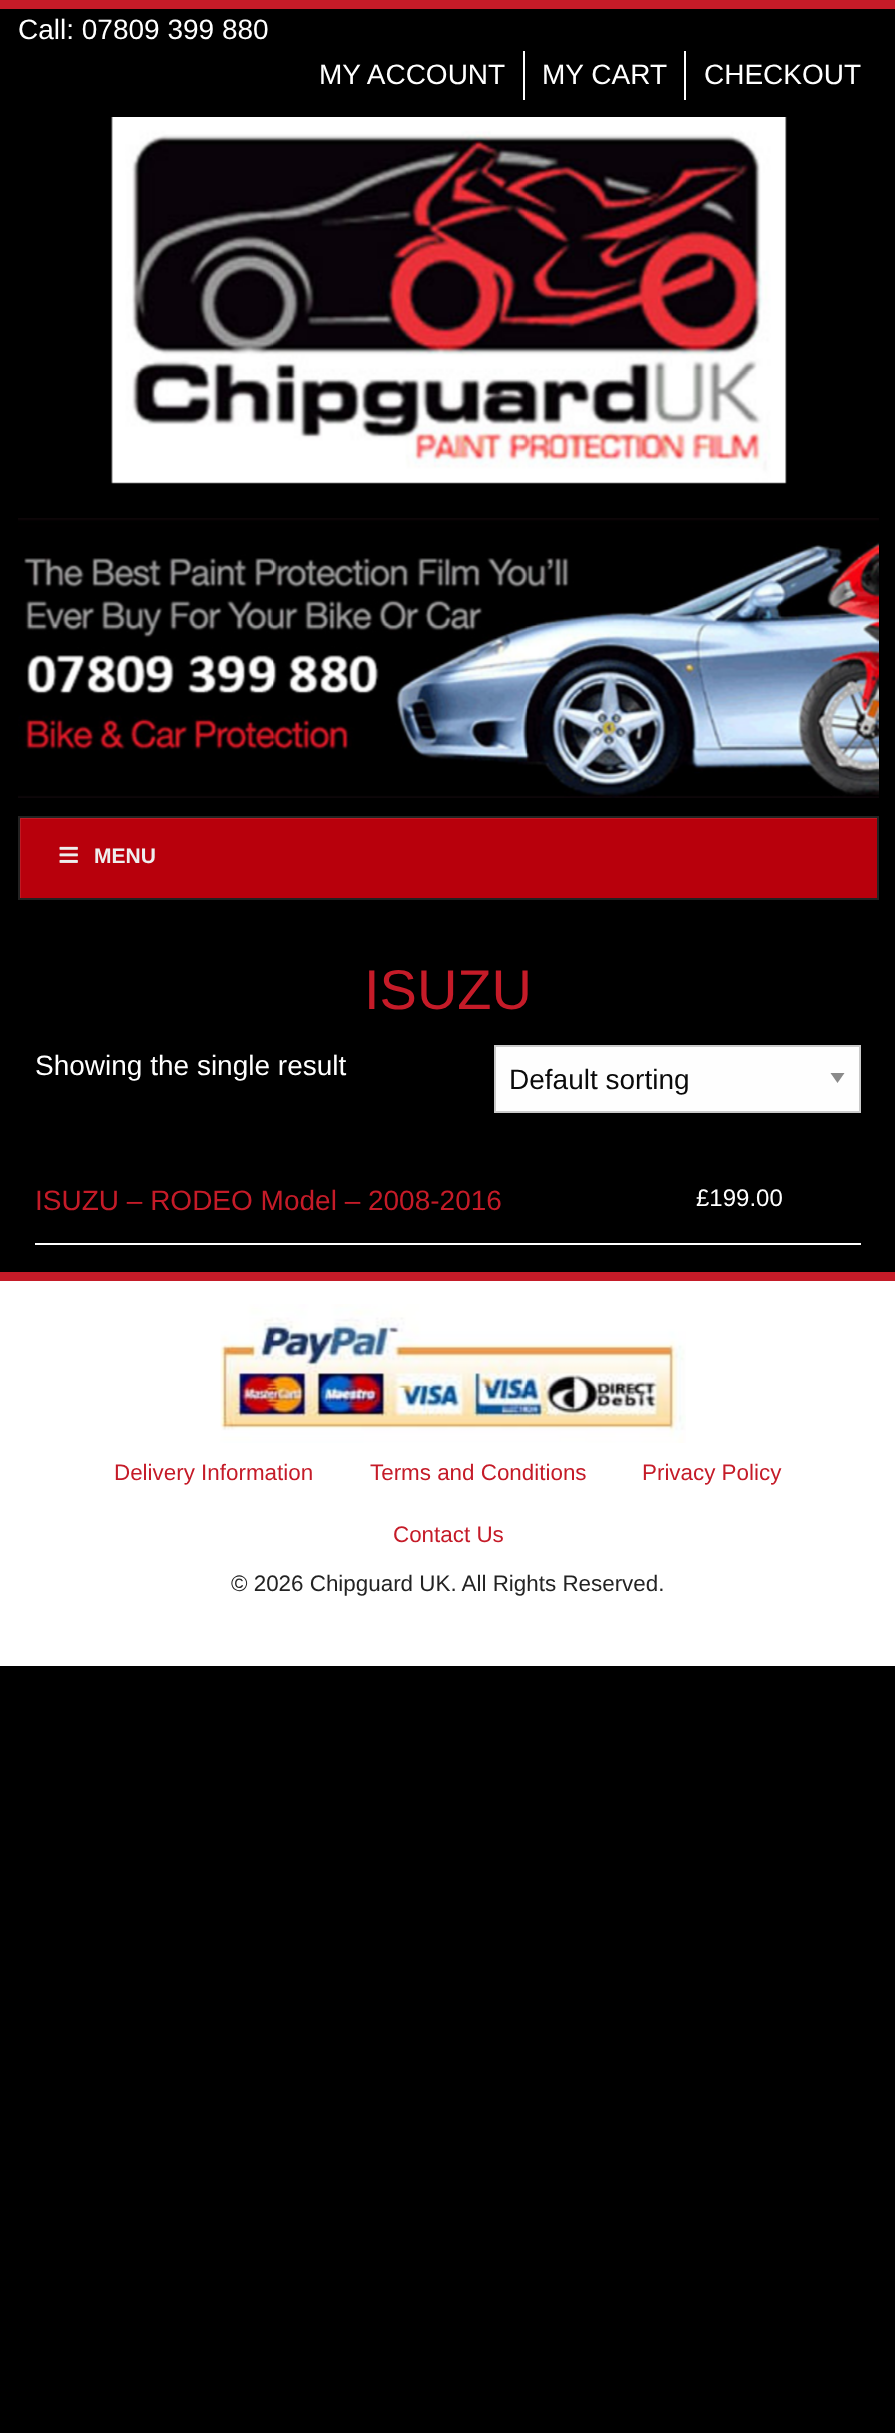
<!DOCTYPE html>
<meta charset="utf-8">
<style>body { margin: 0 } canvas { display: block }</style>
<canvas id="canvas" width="895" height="2433"></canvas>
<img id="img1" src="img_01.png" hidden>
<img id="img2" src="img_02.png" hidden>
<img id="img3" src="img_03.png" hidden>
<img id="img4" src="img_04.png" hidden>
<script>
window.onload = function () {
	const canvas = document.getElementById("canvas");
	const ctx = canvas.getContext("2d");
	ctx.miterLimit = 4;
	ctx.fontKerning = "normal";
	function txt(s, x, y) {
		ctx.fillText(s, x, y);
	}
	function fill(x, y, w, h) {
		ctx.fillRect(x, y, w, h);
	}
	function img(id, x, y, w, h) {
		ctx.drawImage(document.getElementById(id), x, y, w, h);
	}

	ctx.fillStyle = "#000000";
	fill(0, 0, 895, 2433);
	ctx.fillStyle = "#C51B28";
	fill(0, 0, 895, 9);
	ctx.fillStyle = "#FFFFFF";
	fill(523, 51, 2, 49);
	fill(684, 51, 2, 49);
	img("img1", 111, 117, 676, 367);
	img("img2", 18, 518, 861, 280);
	ctx.fillStyle = "#B8000C";
	fill(21, 819, 856, 79);
	ctx.save();
	ctx.beginPath();
	ctx.rect(19, 817, 858, 81);
	ctx.clip();
	ctx.fillStyle = "#BF1A24";
	ctx.beginPath();
	ctx.moveTo(-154, 644);
	ctx.lineTo(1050, 644);
	ctx.lineTo(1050, 1071);
	ctx.lineTo(-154, 1071);
	ctx.closePath();
	ctx.moveTo(21, 819);
	ctx.lineTo(878, 819);
	ctx.lineTo(878, 900);
	ctx.lineTo(21, 900);
	ctx.closePath();
	ctx.fill("evenodd");
	ctx.restore();
	ctx.strokeStyle = "#222222";
	ctx.lineWidth = 2;
	ctx.strokeRect(19, 817, 859, 82);
	img("img3", 59, 846, 19, 17);
	ctx.fillStyle = "#FEFEFE";
	fill(496, 1047, 363, 64);
	ctx.fillStyle = "#8A8A8A";
	ctx.beginPath();
	ctx.moveTo(830.5, 1073);
	ctx.lineTo(844.5, 1073);
	ctx.lineTo(837.5, 1083);
	ctx.closePath();
	ctx.fill();
	ctx.strokeStyle = "#CACACA";
	ctx.strokeRect(495, 1046, 365, 66);
	ctx.fillStyle = "#FFFFFF";
	fill(35, 1243, 826, 2);
	fill(0, 1281, 895, 385);
	ctx.fillStyle = "#C51B28";
	fill(0, 1272, 895, 9);
	img("img4", 220, 1304, 466, 139);
	ctx.font = "28px Liberation Sans";
	ctx.fillStyle = "#FFFFFF";
	txt("Call: 07809 399 880", 18, 39);
	txt("MY ACCOUNT", 319, 84);
	txt("MY CART", 542, 84);
	txt("CHECKOUT", 704, 84);
	ctx.font = "bold 21px Liberation Sans";
	ctx.fillStyle = "#EEEEEE";
	txt("MENU", 94, 863);
	ctx.font = "56px Liberation Sans";
	ctx.fillStyle = "#C51B28";
	txt("ISUZU", 364, 1009);
	ctx.font = "28px Liberation Sans";
	ctx.fillStyle = "#FFFFFF";
	txt("Showing the single result", 35, 1075);
	ctx.fillStyle = "#0A0A0A";
	txt("Default sorting", 509, 1089);
	ctx.fillStyle = "#C51B28";
	txt("ISUZU – RODEO Model – 2008-2016", 35, 1210);
	ctx.font = "24px Liberation Sans";
	ctx.fillStyle = "#FFFFFF";
	txt("£199.00", 696, 1206);
	ctx.font = "22.4px Liberation Sans";
	ctx.fillStyle = "#C51B28";
	txt("Delivery Information", 114, 1480);
	txt("Terms and Conditions", 370, 1480);
	txt("Privacy Policy", 642, 1480);
	txt("Contact Us", 393, 1542);
	ctx.fillStyle = "#232323";
	txt("© 2026 Chipguard UK. All Rights Reserved.", 231, 1591);
};
</script>
